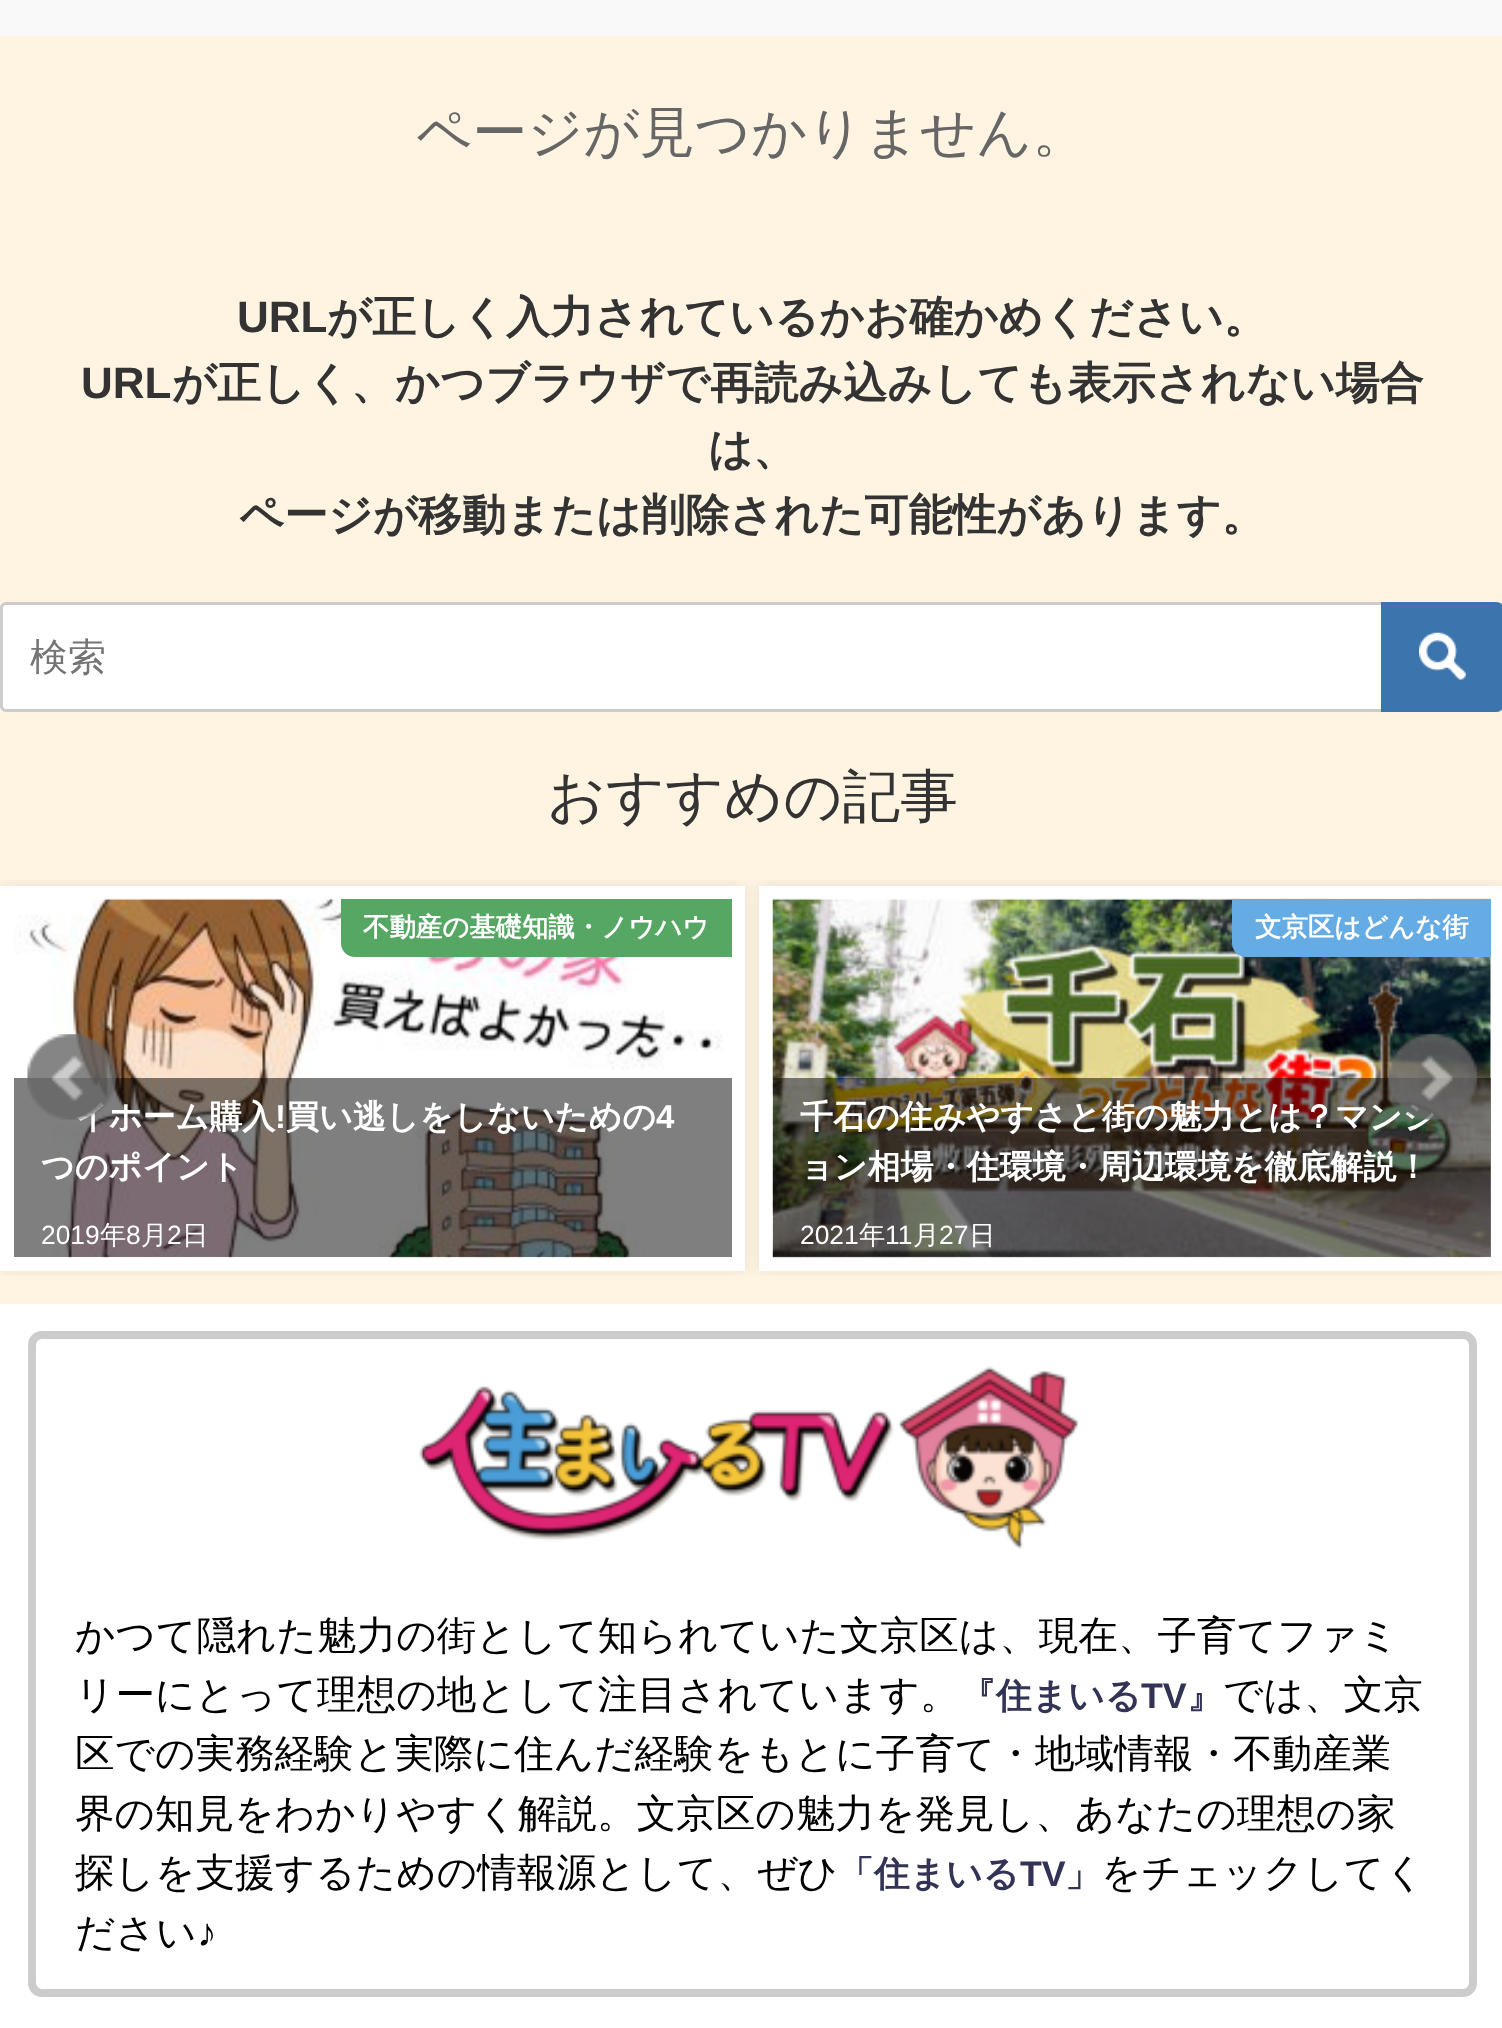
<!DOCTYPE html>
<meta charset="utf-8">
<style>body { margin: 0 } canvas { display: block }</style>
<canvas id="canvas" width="1502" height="2028"></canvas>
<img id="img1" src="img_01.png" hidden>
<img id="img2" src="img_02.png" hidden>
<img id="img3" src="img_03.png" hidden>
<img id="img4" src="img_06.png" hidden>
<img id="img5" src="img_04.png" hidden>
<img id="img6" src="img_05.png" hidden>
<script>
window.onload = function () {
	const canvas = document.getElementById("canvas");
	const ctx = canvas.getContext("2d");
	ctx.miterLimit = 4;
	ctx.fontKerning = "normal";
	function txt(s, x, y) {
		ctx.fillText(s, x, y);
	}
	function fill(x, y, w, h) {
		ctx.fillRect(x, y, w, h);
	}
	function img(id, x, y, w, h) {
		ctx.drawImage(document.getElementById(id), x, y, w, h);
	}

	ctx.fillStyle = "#FFF4E1";
	fill(0, 0, 1502, 2028);
	ctx.fillStyle = "#F9F9F9";
	fill(0, 0, 1502, 36);
	ctx.fillStyle = "#FFFFFF";
	ctx.beginPath();
	ctx.roundRect(1.5, 603.5, 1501, 107, 4.5);
	ctx.fill();
	ctx.strokeStyle = "#CCCCCC";
	ctx.lineWidth = 3;
	ctx.stroke();
	ctx.fillStyle = "#3C74AD";
	ctx.beginPath();
	ctx.moveTo(1381, 602);
	ctx.lineTo(1496, 602);
	ctx.bezierCurveTo(1500.5, 602, 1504, 605.5, 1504, 610);
	ctx.lineTo(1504, 704);
	ctx.bezierCurveTo(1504, 708.5, 1500.5, 712, 1496, 712);
	ctx.lineTo(1381, 712);
	ctx.closePath();
	ctx.fill();
	img("img1", 1419, 632, 47, 48);
	ctx.save();
	ctx.beginPath();
	ctx.rect(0, 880, 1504, 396);
	ctx.clip();
	ctx.fillStyle = "rgba(150, 150, 150, 0.2)";
	ctx.filter = "blur(7px)";
	ctx.beginPath();
	ctx.rect(0, 886, 745, 385);
	ctx.fill();
	ctx.filter = "none";
	ctx.restore();
	ctx.fillStyle = "#FFFFFF";
	fill(0, 886, 745, 385);
	img("img2", 14, 898, 709, 360);
	ctx.fillStyle = "#56A764";
	ctx.beginPath();
	ctx.roundRect(341, 899, 391, 58, [0, 0, 0, 14]);
	ctx.fill();
	ctx.fillStyle = "rgba(0, 0, 0, 0.5)";
	fill(14, 1078, 718, 179);
	ctx.save();
	ctx.beginPath();
	ctx.rect(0, 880, 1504, 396);
	ctx.clip();
	ctx.fillStyle = "rgba(150, 150, 150, 0.2)";
	ctx.filter = "blur(7px)";
	ctx.beginPath();
	ctx.rect(759, 886, 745, 385);
	ctx.fill();
	ctx.filter = "none";
	ctx.restore();
	ctx.fillStyle = "#FFFFFF";
	fill(759, 886, 743, 385);
	img("img3", 772, 898, 719, 360);
	ctx.fillStyle = "#65ACE4";
	ctx.beginPath();
	ctx.roundRect(1232, 899, 259, 58, [0, 0, 0, 14]);
	ctx.fill();
	ctx.fillStyle = "rgba(0, 0, 0, 0.5)";
	fill(773, 1078, 718, 179);
	ctx.fillStyle = "#FFFFFF";
	fill(0, 1304, 1502, 724);
	ctx.beginPath();
	ctx.roundRect(32, 1335, 1441, 658, 10);
	ctx.lineWidth = 8;
	ctx.stroke();
	img("img4", 419, 1366, 660, 183);
	ctx.font = "500 55px WenQuanYi Zen Hei";
	ctx.fillStyle = "#666666";
	txt("ページが見つかりません。", 416, 151);
	ctx.font = "bold 44px Liberation Sans";
	ctx.fillStyle = "#333333";
	txt("URL", 237, 332);
	ctx.font = "bold 44px WenQuanYi Zen Hei";
	txt("が正しく入力されているかお確かめください。", 327, 332);
	ctx.font = "bold 44px Liberation Sans";
	txt("URL", 81, 398);
	ctx.font = "bold 44px WenQuanYi Zen Hei";
	txt("が正しく、かつブラウザで再読み込みしても表示されない場合", 172, 398);
	txt("は、", 708, 464);
	txt("ページが移動または削除された可能性があります。", 239, 530);
	ctx.font = "500 38px WenQuanYi Zen Hei";
	ctx.fillStyle = "#757575";
	txt("検索", 30, 670);
	ctx.font = "500 57.75px WenQuanYi Zen Hei";
	ctx.fillStyle = "#333333";
	txt("おすすめの記事", 547, 816);
	ctx.font = "bold 26.4px WenQuanYi Zen Hei";
	ctx.fillStyle = "#FFFFFF";
	txt("不動産の基礎知識・ノウハウ", 363, 936);
	ctx.font = "bold 33px WenQuanYi Zen Hei";
	txt("イホーム購入", 75, 1128);
	ctx.font = "bold 33px Liberation Sans";
	txt("!", 275, 1128);
	ctx.font = "bold 33px WenQuanYi Zen Hei";
	txt("買い逃しをしないための", 286, 1128);
	ctx.font = "bold 33px Liberation Sans";
	txt("4", 656, 1128);
	ctx.font = "bold 33px WenQuanYi Zen Hei";
	txt("つのポイント", 41, 1178);
	ctx.font = "26.4px Liberation Sans";
	txt("2019", 41, 1244);
	ctx.font = "500 26.4px WenQuanYi Zen Hei";
	txt("年", 100, 1244);
	ctx.font = "26.4px Liberation Sans";
	txt("8", 126, 1244);
	ctx.font = "500 26.4px WenQuanYi Zen Hei";
	txt("月", 141, 1244);
	ctx.font = "26.4px Liberation Sans";
	txt("2", 167, 1244);
	ctx.font = "500 26.4px WenQuanYi Zen Hei";
	txt("日", 182, 1244);
	ctx.font = "bold 26.4px WenQuanYi Zen Hei";
	txt("文京区はどんな街", 1255, 936);
	ctx.font = "bold 33px WenQuanYi Zen Hei";
	txt("千石の住みやすさと街の魅力とは？マンシ", 800, 1128);
	txt("ョン相場・住環境・周辺環境を徹底解説！", 800, 1178);
	ctx.font = "26.4px Liberation Sans";
	txt("2021", 800, 1244);
	ctx.font = "500 26.4px WenQuanYi Zen Hei";
	txt("年", 859, 1244);
	ctx.font = "26.4px Liberation Sans";
	txt("11", 885, 1244);
	ctx.font = "500 26.4px WenQuanYi Zen Hei";
	txt("月", 913, 1244);
	ctx.font = "26.4px Liberation Sans";
	txt("27", 939, 1244);
	ctx.font = "500 26.4px WenQuanYi Zen Hei";
	txt("日", 969, 1244);
	img("img5", 27, 1034, 89, 86);
	img("img6", 1388, 1034, 89, 86);
	ctx.font = "500 39.6px WenQuanYi Zen Hei";
	ctx.fillStyle = "#000000";
	txt("かつて隠れた魅力の街として知られていた文京区は、現在、子育てファミ", 75, 1649);
	txt("リーにとって理想の地として注目されています。", 75, 1708);
	ctx.font = "bold 35.75px WenQuanYi Zen Hei";
	ctx.fillStyle = "#333355";
	txt("『住まいる", 960, 1708);
	ctx.font = "bold 35.75px Liberation Sans";
	txt("TV", 1141, 1708);
	ctx.font = "bold 35.75px WenQuanYi Zen Hei";
	txt("』", 1187, 1708);
	ctx.font = "500 39.6px WenQuanYi Zen Hei";
	ctx.fillStyle = "#000000";
	txt("では、文京", 1223, 1708);
	txt("区での実務経験と実際に住んだ経験をもとに子育て・地域情報・不動産業", 75, 1767);
	txt("界の知見をわかりやすく解説。文京区の魅力を発見し、あなたの理想の家", 75, 1827);
	txt("探しを支援するための情報源として、ぜひ", 75, 1886);
	ctx.font = "bold 35.75px WenQuanYi Zen Hei";
	ctx.fillStyle = "#333355";
	txt("「住まいる", 838, 1886);
	ctx.font = "bold 35.75px Liberation Sans";
	txt("TV", 1020, 1886);
	ctx.font = "bold 35.75px WenQuanYi Zen Hei";
	txt("」", 1065, 1886);
	ctx.font = "500 39.6px WenQuanYi Zen Hei";
	ctx.fillStyle = "#000000";
	txt("をチェックしてく", 1101, 1886);
	txt("ださい", 75, 1946);
	ctx.font = "39.6px Liberation Sans";
	txt("♪", 197, 1946);
};
</script>
